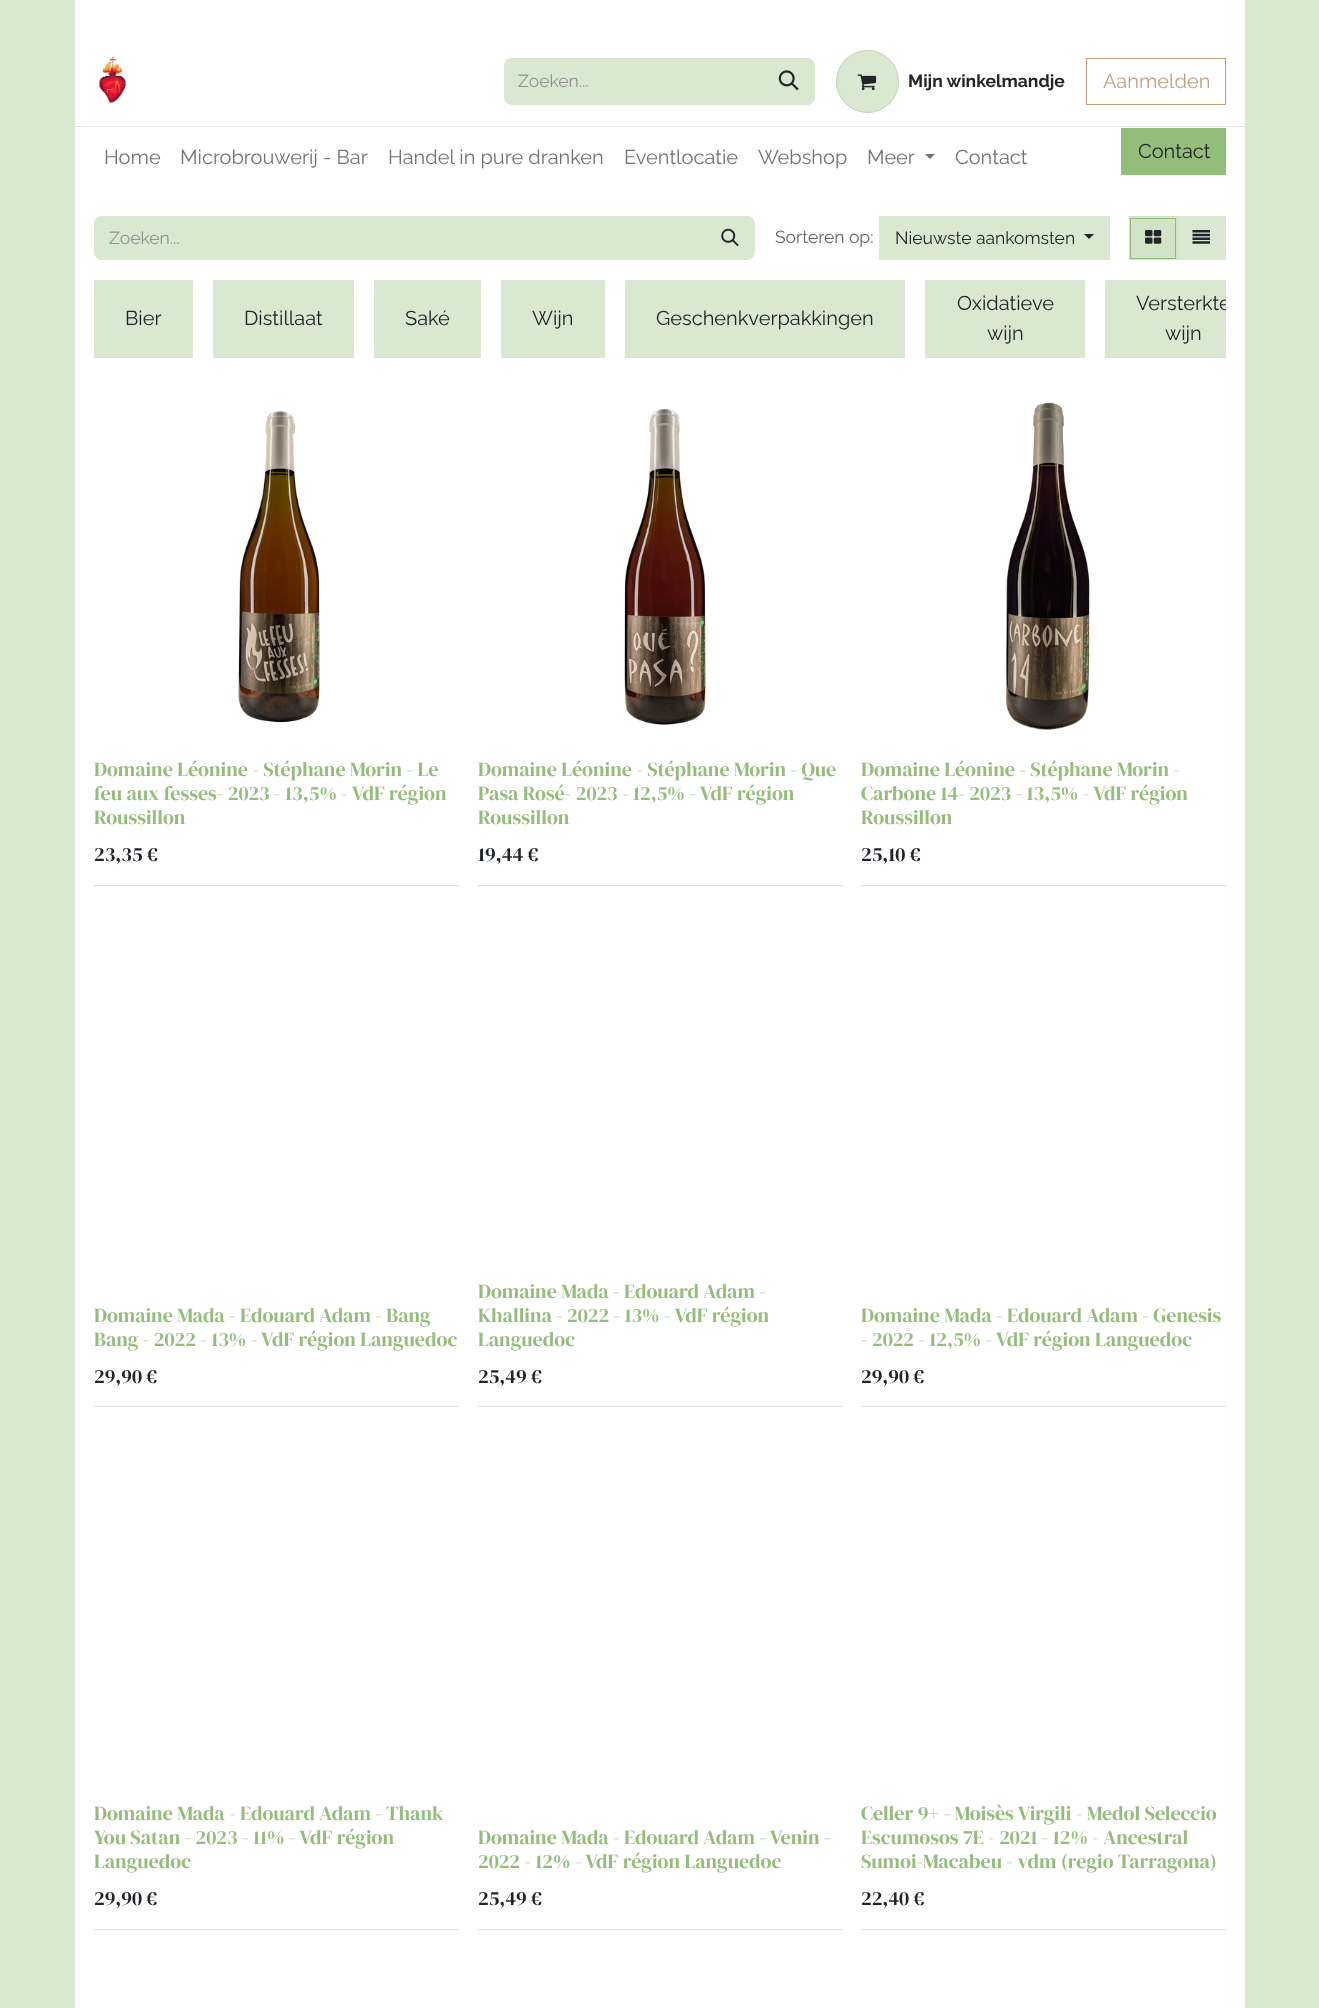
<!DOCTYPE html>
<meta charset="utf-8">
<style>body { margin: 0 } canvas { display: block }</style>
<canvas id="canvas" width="1319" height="2008"></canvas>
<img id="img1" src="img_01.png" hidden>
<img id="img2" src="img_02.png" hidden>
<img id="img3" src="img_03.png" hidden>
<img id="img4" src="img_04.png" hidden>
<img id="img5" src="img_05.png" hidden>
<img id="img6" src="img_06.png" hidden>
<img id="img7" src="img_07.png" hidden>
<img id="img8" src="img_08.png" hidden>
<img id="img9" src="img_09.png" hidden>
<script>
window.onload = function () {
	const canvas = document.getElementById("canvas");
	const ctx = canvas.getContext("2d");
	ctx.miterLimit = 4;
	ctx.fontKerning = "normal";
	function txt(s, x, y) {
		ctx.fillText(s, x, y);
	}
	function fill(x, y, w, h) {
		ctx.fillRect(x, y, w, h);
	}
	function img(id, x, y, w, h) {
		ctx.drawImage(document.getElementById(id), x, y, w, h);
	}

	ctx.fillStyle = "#D9E8D0";
	fill(0, 0, 1319, 2008);
	ctx.fillStyle = "#FFFFFF";
	fill(75, 0, 1170, 2008);
	img("img1", 99, 56, 28, 47);
	ctx.fillStyle = "#D9E8D0";
	ctx.beginPath();
	ctx.roundRect(504, 58, 260, 47, [8, 0, 0, 8]);
	ctx.fill();
	ctx.beginPath();
	ctx.roundRect(763.5, 58.5, 51, 46, [0, 7.5, 7.5, 0]);
	ctx.fill();
	ctx.strokeStyle = "#D9E8D0";
	ctx.stroke();
	img("img2", 778, 70, 21, 21);
	ctx.beginPath();
	ctx.arc(867.5, 81.5, 31.5, 0, Math.PI * 2);
	ctx.fill();
	ctx.beginPath();
	ctx.arc(867.5, 81.5, 31, 0, Math.PI * 2);
	ctx.strokeStyle = "rgba(0, 0, 0, 0.1)";
	ctx.stroke();
	img("img3", 857, 74, 20, 17);
	ctx.strokeStyle = "#C19F7F";
	ctx.strokeRect(1086.5, 58.5, 139, 46);
	ctx.fillStyle = "#E6E6E6";
	fill(75, 126, 1170, 1);
	ctx.fillStyle = "#737373";
	ctx.beginPath();
	ctx.moveTo(925, 154);
	ctx.lineTo(935, 154);
	ctx.lineTo(930, 159);
	ctx.closePath();
	ctx.fill();
	ctx.fillStyle = "#94BD7B";
	fill(1121, 128, 105, 47);
	ctx.fillStyle = "#D9E8D0";
	ctx.beginPath();
	ctx.roundRect(94, 216, 612, 44, [8, 0, 0, 8]);
	ctx.fill();
	ctx.beginPath();
	ctx.roundRect(705.5, 216.5, 49, 43, [0, 7.5, 7.5, 0]);
	ctx.fill();
	ctx.strokeStyle = "#D9E8D0";
	ctx.stroke();
	img("img4", 721, 228, 18, 19);
	fill(879, 216, 231, 44);
	ctx.fillStyle = "#212529";
	ctx.beginPath();
	ctx.moveTo(1084, 234);
	ctx.lineTo(1094, 234);
	ctx.lineTo(1089, 239);
	ctx.closePath();
	ctx.fill();
	ctx.fillStyle = "#D2E4C8";
	fill(1129, 216, 49, 44);
	ctx.strokeStyle = "#94BD7B";
	ctx.strokeRect(1130.5, 218.5, 45, 40);
	img("img5", 1145, 230, 17, 14);
	ctx.fillStyle = "#D9E8D0";
	fill(1178, 216, 48, 44);
	img("img6", 1192, 230, 18, 14);
	fill(94, 280, 99, 78);
	fill(213, 280, 141, 78);
	fill(374, 280, 107, 78);
	fill(501, 280, 104, 78);
	fill(625, 280, 280, 78);
	fill(925, 280, 160, 78);
	fill(1105, 280, 121, 78);
	ctx.fillStyle = "#DEDEDF";
	fill(94, 885, 365, 1);
	img("img7", 238, 411, 82, 312);
	fill(478, 885, 365, 1);
	img("img8", 624, 408, 82, 317);
	fill(861, 885, 365, 1);
	img("img9", 1005, 402, 85, 328);
	fill(94, 1406, 365, 1);
	fill(478, 1406, 365, 1);
	fill(861, 1406, 365, 1);
	fill(94, 1929, 365, 1);
	fill(478, 1929, 365, 1);
	fill(861, 1929, 365, 1);
	ctx.font = "17.5px Raleway";
	ctx.fillStyle = "#909294";
	txt("Zoeken...", 518, 87);
	ctx.font = "bold 17.5px Raleway";
	ctx.fillStyle = "#212529";
	txt("Mijn winkelmandje", 908, 87);
	ctx.font = "20px Raleway";
	ctx.fillStyle = "#C19F7F";
	txt("Aanmelden", 1103, 88);
	ctx.fillStyle = "#737373";
	txt("Home", 104, 164);
	txt("Microbrouwerij - Bar", 180, 164);
	txt("Handel in pure dranken", 388, 164);
	txt("Eventlocatie", 624, 164);
	txt("Webshop", 758, 164);
	txt("Meer", 867, 164);
	txt("Contact", 955, 164);
	ctx.fillStyle = "#212529";
	txt("Contact", 1138, 158);
	ctx.font = "17.5px Raleway";
	ctx.fillStyle = "#909294";
	txt("Zoeken...", 109, 244);
	ctx.fillStyle = "#646669";
	txt("Sorteren op:", 775, 243);
	ctx.fillStyle = "#212529";
	txt("Nieuwste aankomsten", 895, 244);
	ctx.font = "20px Raleway";
	txt("Bier", 125, 325);
	txt("Distillaat", 244, 325);
	txt("Saké", 405, 325);
	txt("Wijn", 532, 325);
	txt("Geschenkverpakkingen", 656, 325);
	txt("Oxidatieve", 957, 310);
	txt("wijn", 987, 340);
	ctx.save();
	ctx.beginPath();
	ctx.rect(94, 280, 1132, 83);
	ctx.clip();
	txt("Versterkte", 1136, 310);
	ctx.restore();
	txt("wijn", 1165, 340);
	ctx.font = "20px DM Serif Display";
	ctx.fillStyle = "#94BD7B";
	txt("Domaine Léonine - Stéphane Morin - Le", 94, 776);
	txt("feu aux fesses- 2023 - 13,5% - VdF région", 94, 800);
	txt("Roussillon", 94, 824);
	ctx.fillStyle = "#212529";
	txt("23,35 €", 94, 861);
	ctx.fillStyle = "#94BD7B";
	txt("Domaine Léonine - Stéphane Morin - Que", 478, 776);
	txt("Pasa Rosé- 2023 - 12,5% - VdF région", 478, 800);
	txt("Roussillon", 478, 824);
	ctx.fillStyle = "#212529";
	txt("19,44 €", 478, 861);
	ctx.fillStyle = "#94BD7B";
	txt("Domaine Léonine - Stéphane Morin -", 861, 776);
	txt("Carbone 14- 2023 - 13,5% - VdF région", 861, 800);
	txt("Roussillon", 861, 824);
	ctx.fillStyle = "#212529";
	txt("25,10 €", 861, 861);
	ctx.fillStyle = "#94BD7B";
	txt("Domaine Mada - Edouard Adam - Bang", 94, 1322);
	txt("Bang - 2022 - 13% - VdF région Languedoc", 94, 1346);
	ctx.fillStyle = "#212529";
	txt("29,90 €", 94, 1383);
	ctx.fillStyle = "#94BD7B";
	txt("Domaine Mada - Edouard Adam -", 478, 1298);
	txt("Khallina - 2022 - 13% - VdF région", 478, 1322);
	txt("Languedoc", 478, 1346);
	ctx.fillStyle = "#212529";
	txt("25,49 €", 478, 1383);
	ctx.fillStyle = "#94BD7B";
	txt("Domaine Mada - Edouard Adam - Genesis", 861, 1322);
	txt("- 2022 - 12,5% - VdF région Languedoc", 861, 1346);
	ctx.fillStyle = "#212529";
	txt("29,90 €", 861, 1383);
	ctx.fillStyle = "#94BD7B";
	txt("Domaine Mada - Edouard Adam - Thank", 94, 1820);
	txt("You Satan - 2023 - 11% - VdF région", 94, 1844);
	txt("Languedoc", 94, 1868);
	ctx.fillStyle = "#212529";
	txt("29,90 €", 94, 1905);
	ctx.fillStyle = "#94BD7B";
	txt("Domaine Mada - Edouard Adam - Venin -", 478, 1844);
	txt("2022 - 12% - VdF région Languedoc", 478, 1868);
	ctx.fillStyle = "#212529";
	txt("25,49 €", 478, 1905);
	ctx.fillStyle = "#94BD7B";
	txt("Celler 9+ - Moisès Virgili - Medol Seleccio", 861, 1820);
	txt("Escumosos 7E - 2021 - 12% - Ancestral", 861, 1844);
	txt("Sumoi-Macabeu - vdm (regio Tarragona)", 861, 1868);
	ctx.fillStyle = "#212529";
	txt("22,40 €", 861, 1905);
};
</script>
